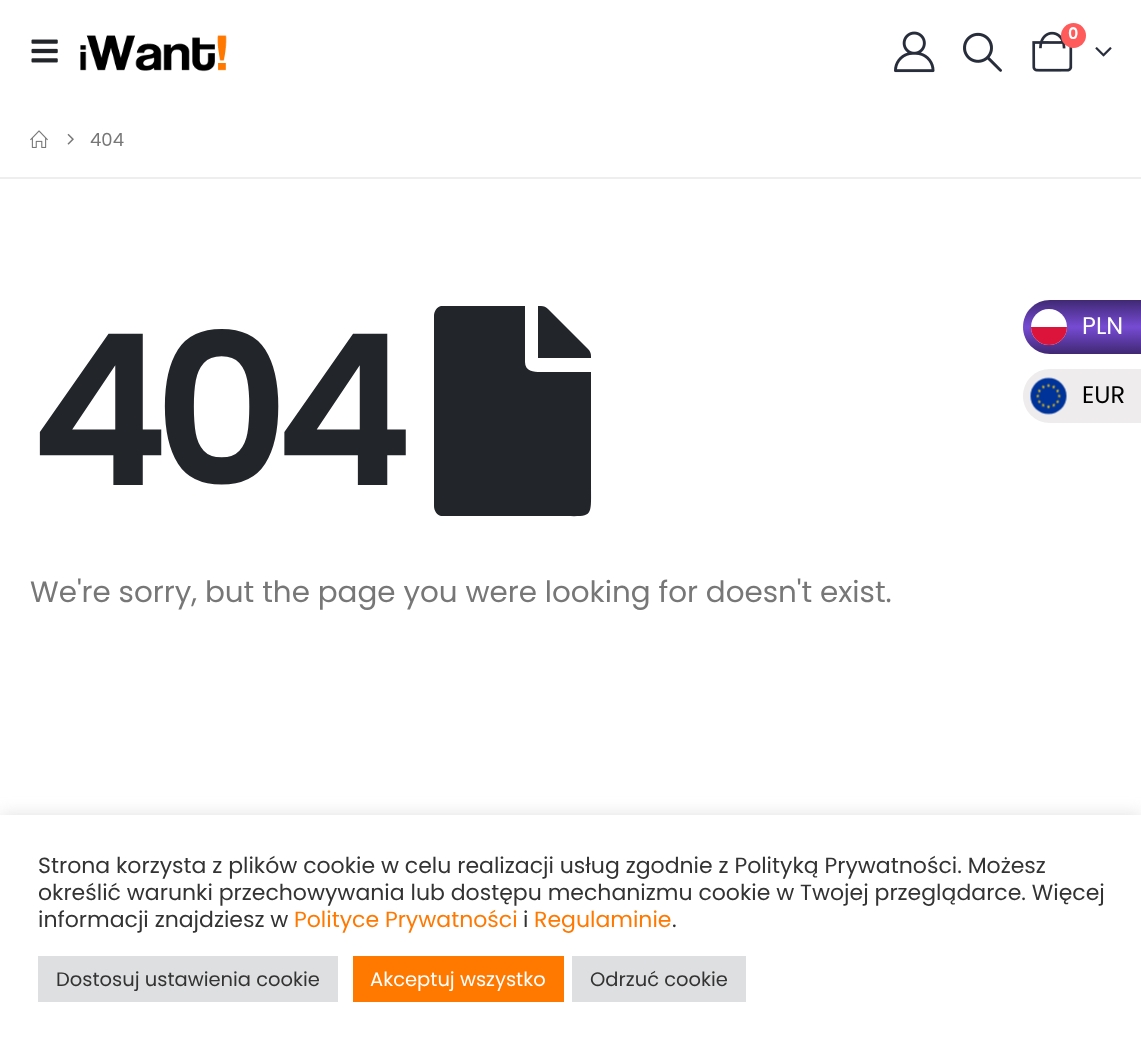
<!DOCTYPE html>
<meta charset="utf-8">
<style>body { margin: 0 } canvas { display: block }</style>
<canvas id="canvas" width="1141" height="1046"></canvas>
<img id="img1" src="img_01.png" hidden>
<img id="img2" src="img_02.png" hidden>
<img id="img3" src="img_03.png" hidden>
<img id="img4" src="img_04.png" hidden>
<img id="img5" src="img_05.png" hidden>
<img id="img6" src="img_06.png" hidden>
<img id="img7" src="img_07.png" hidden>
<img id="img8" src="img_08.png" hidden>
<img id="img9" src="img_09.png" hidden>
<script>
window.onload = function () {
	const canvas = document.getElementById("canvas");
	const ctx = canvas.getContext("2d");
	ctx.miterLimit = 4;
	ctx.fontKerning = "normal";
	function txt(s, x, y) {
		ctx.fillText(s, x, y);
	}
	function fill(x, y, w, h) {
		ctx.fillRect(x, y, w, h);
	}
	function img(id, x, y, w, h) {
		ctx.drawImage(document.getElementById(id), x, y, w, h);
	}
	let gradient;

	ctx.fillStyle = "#FFFFFF";
	fill(0, 0, 1141, 1046);
	img("img1", 894, 31, 41, 42);
	img("img2", 963, 32, 39, 40);
	img("img3", 1032, 31, 41, 41);
	ctx.fillStyle = "#FF5B5B";
	ctx.beginPath();
	ctx.arc(1073.5, 35.5, 12.5, 0, Math.PI * 2);
	ctx.fill();
	img("img4", 1095, 47, 17, 10);
	img("img5", 31, 39, 27, 24);
	img("img6", 80, 35, 147, 37);
	ctx.fillStyle = "#EEEEEE";
	fill(0, 177, 1141, 2);
	img("img7", 30, 130, 18, 18);
	img("img8", 67, 133, 7, 12);
	ctx.fillStyle = "#222529";
	ctx.beginPath();
	ctx.moveTo(525, 362);
	ctx.lineTo(525, 306);
	ctx.lineTo(441, 306);
	ctx.bezierCurveTo(437, 307, 434, 311, 434, 316);
	ctx.lineTo(434, 506);
	ctx.bezierCurveTo(434, 511, 437, 515, 441, 516);
	ctx.lineTo(558, 516);
	ctx.bezierCurveTo(594, 516, 591, 520, 591, 484);
	ctx.lineTo(591, 372);
	ctx.lineTo(544, 372);
	ctx.bezierCurveTo(537, 372, 525, 373, 525, 362);
	ctx.closePath();
	ctx.moveTo(591, 356);
	ctx.lineTo(591, 358);
	ctx.lineTo(538, 358);
	ctx.lineTo(538, 306);
	ctx.lineTo(541, 306);
	ctx.bezierCurveTo(544, 306, 546, 307, 548, 309);
	ctx.lineTo(588, 349);
	ctx.bezierCurveTo(590, 351, 591, 353, 591, 356);
	ctx.closePath();
	ctx.fill();
	gradient = ctx.createLinearGradient(1095, 300, 1095, 354);
	gradient.addColorStop(0, "#402973");
	gradient.addColorStop(0.5, "#764BD3");
	gradient.addColorStop(1, "#402872");
	ctx.fillStyle = gradient;
	ctx.beginPath();
	ctx.moveTo(1050, 300);
	ctx.lineTo(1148, 300);
	ctx.lineTo(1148, 354);
	ctx.lineTo(1050, 354);
	ctx.bezierCurveTo(1035, 354, 1023, 342, 1023, 327);
	ctx.bezierCurveTo(1023, 312, 1035, 300, 1050, 300);
	ctx.closePath();
	ctx.fill();
	ctx.fillStyle = "#FFFFFF";
	ctx.beginPath();
	ctx.arc(1049, 327, 18, 0, Math.PI * 2);
	ctx.fill();
	ctx.fillStyle = "#DC143C";
	ctx.beginPath();
	ctx.roundRect(1031, 327, 36, 18, [0, 0, 18, 18]);
	ctx.fill();
	ctx.fillStyle = "#EEECEC";
	ctx.beginPath();
	ctx.moveTo(1050, 369);
	ctx.lineTo(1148, 369);
	ctx.lineTo(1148, 423);
	ctx.lineTo(1050, 423);
	ctx.bezierCurveTo(1035, 423, 1023, 411, 1023, 396);
	ctx.bezierCurveTo(1023, 381, 1035, 369, 1050, 369);
	ctx.closePath();
	ctx.fill();
	img("img9", 1030, 377, 37, 38);
	ctx.fillStyle = "rgba(172, 171, 171, 0.3)";
	ctx.filter = "blur(7.5px)";
	ctx.beginPath();
	ctx.rect(0, 813, 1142, 233);
	ctx.fill();
	ctx.filter = "none";
	ctx.fillStyle = "#FFFFFF";
	fill(0, 815, 1141, 231);
	ctx.fillStyle = "#DEDFE0";
	fill(38, 956, 300, 46);
	ctx.fillStyle = "#FF7800";
	fill(353, 956, 211, 46);
	ctx.fillStyle = "#DEDFE0";
	fill(572, 956, 174, 46);
	ctx.font = "600 16px Poppins";
	ctx.fillStyle = "#FFFFFF";
	txt("0", 1068, 39);
	ctx.font = "18px Poppins";
	ctx.fillStyle = "#777777";
	txt("404", 90, 146);
	ctx.letterSpacing = "-15px";
	ctx.font = "600 210px Poppins";
	ctx.fillStyle = "#222529";
	txt("404", 30, 485);
	ctx.letterSpacing = "0px";
	ctx.font = "29.4px Poppins";
	ctx.fillStyle = "#777777";
	txt("We're sorry, but the page you were looking for doesn't exist.", 30, 602);
	ctx.font = "24px Poppins";
	ctx.fillStyle = "#FFFFFF";
	txt("PLN", 1082, 334);
	ctx.fillStyle = "#000000";
	txt("EUR", 1082, 403);
	ctx.font = "22px Poppins";
	ctx.fillStyle = "#333333";
	txt("Strona korzysta z plików cookie w celu realizacji usług zgodnie z Polityką Prywatności. Możesz", 38, 873);
	txt("określić warunki przechowywania lub dostępu mechanizmu cookie w Twojej przeglądarce. Więcej", 38, 900);
	txt("informacji znajdziesz w", 38, 927);
	ctx.fillStyle = "#FF7800";
	txt("Polityce Prywatności", 294, 927);
	ctx.fillStyle = "#333333";
	txt("i", 523, 927);
	ctx.fillStyle = "#FF7800";
	txt("Regulaminie", 534, 927);
	ctx.fillStyle = "#333333";
	txt(".", 672, 927);
	ctx.font = "19.5px Poppins";
	txt("Dostosuj ustawienia cookie", 56, 986);
	ctx.fillStyle = "#FFFFFF";
	txt("Akceptuj wszystko", 370, 986);
	ctx.fillStyle = "#333333";
	txt("Odrzuć cookie", 590, 986);
};
</script>
